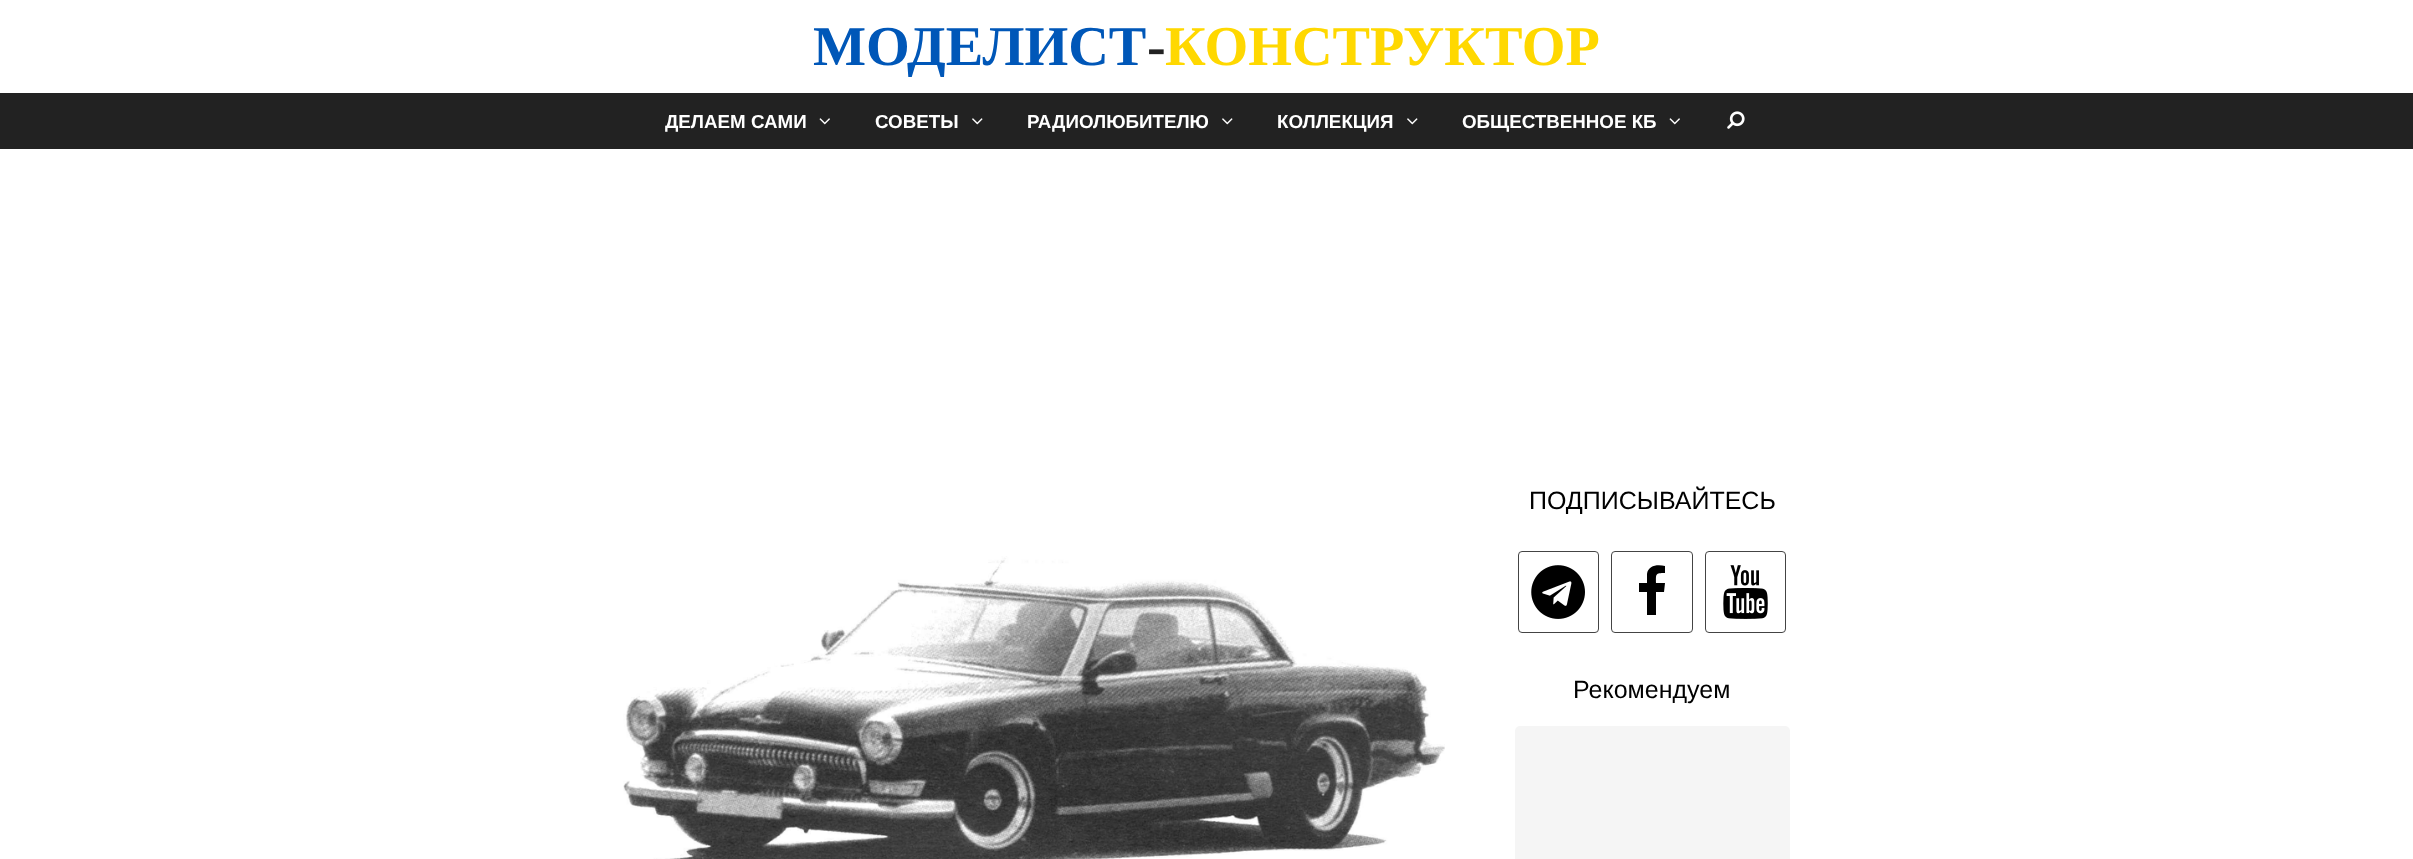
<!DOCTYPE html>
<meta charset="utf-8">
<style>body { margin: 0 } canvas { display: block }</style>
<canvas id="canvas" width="2413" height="859"></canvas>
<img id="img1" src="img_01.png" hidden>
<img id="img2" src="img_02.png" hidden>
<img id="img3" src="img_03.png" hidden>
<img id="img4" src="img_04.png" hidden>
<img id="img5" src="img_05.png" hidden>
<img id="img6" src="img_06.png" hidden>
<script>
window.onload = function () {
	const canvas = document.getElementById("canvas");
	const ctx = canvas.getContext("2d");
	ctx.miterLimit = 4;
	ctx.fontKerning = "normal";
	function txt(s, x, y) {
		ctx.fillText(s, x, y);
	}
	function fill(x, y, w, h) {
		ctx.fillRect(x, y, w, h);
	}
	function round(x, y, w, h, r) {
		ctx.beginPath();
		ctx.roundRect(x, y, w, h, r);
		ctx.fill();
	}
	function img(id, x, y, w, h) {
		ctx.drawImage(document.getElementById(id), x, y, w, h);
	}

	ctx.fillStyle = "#FFFFFF";
	fill(0, 0, 2413, 859);
	ctx.fillStyle = "#222222";
	fill(0, 93, 2413, 56);
	img("img1", 819, 118, 11, 7);
	img("img2", 972, 118, 11, 7);
	img("img2", 1222, 118, 11, 7);
	img("img2", 1407, 118, 11, 7);
	img("img1", 1669, 118, 11, 7);
	img("img3", 1727, 111, 18, 18);
	img("img4", 623, 556, 822, 303);
	ctx.beginPath();
	ctx.roundRect(1518.5, 551.5, 80, 81, 3.5);
	ctx.strokeStyle = "#444444";
	ctx.stroke();
	img("img5", 1531, 565, 54, 54);
	ctx.beginPath();
	ctx.roundRect(1611.5, 551.5, 81, 81, 3.5);
	ctx.stroke();
	ctx.fillStyle = "#000000";
	ctx.beginPath();
	ctx.moveTo(1665, 566);
	ctx.lineTo(1665, 573);
	ctx.bezierCurveTo(1655, 573, 1656, 574, 1656, 583);
	ctx.lineTo(1665, 583);
	ctx.lineTo(1664, 592);
	ctx.lineTo(1656, 592);
	ctx.lineTo(1656, 615);
	ctx.lineTo(1647, 615);
	ctx.lineTo(1647, 592);
	ctx.lineTo(1639, 592);
	ctx.lineTo(1639, 583);
	ctx.lineTo(1647, 583);
	ctx.lineTo(1647, 574);
	ctx.bezierCurveTo(1648, 565, 1658, 564, 1665, 566);
	ctx.closePath();
	ctx.fill();
	ctx.beginPath();
	ctx.roundRect(1705.5, 551.5, 80, 81, 3.5);
	ctx.stroke();
	img("img6", 1723, 565, 45, 54);
	ctx.fillStyle = "#F5F5F5";
	round(1515, 726, 275, 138, 5);
	ctx.font = "bold 56.25px Liberation Serif";
	ctx.fillStyle = "#0057B8";
	txt("МОДЕЛИСТ", 813, 65);
	ctx.fillStyle = "#222222";
	txt("-", 1147, 65);
	ctx.fillStyle = "#FFD800";
	txt("КОНСТРУКТОР", 1165, 65);
	ctx.font = "bold 18.75px Liberation Sans";
	ctx.fillStyle = "#FFFFFF";
	txt("ДЕЛАЕМ САМИ", 665, 128);
	txt("СОВЕТЫ", 875, 128);
	txt("РАДИОЛЮБИТЕЛЮ", 1027, 128);
	txt("КОЛЛЕКЦИЯ", 1277, 128);
	txt("ОБЩЕСТВЕННОЕ КБ", 1462, 128);
	ctx.font = "25px Liberation Sans";
	ctx.fillStyle = "#000000";
	txt("ПОДПИСЫВАЙТЕСЬ", 1529, 509);
	txt("Рекомендуем", 1573, 698);
};
</script>
